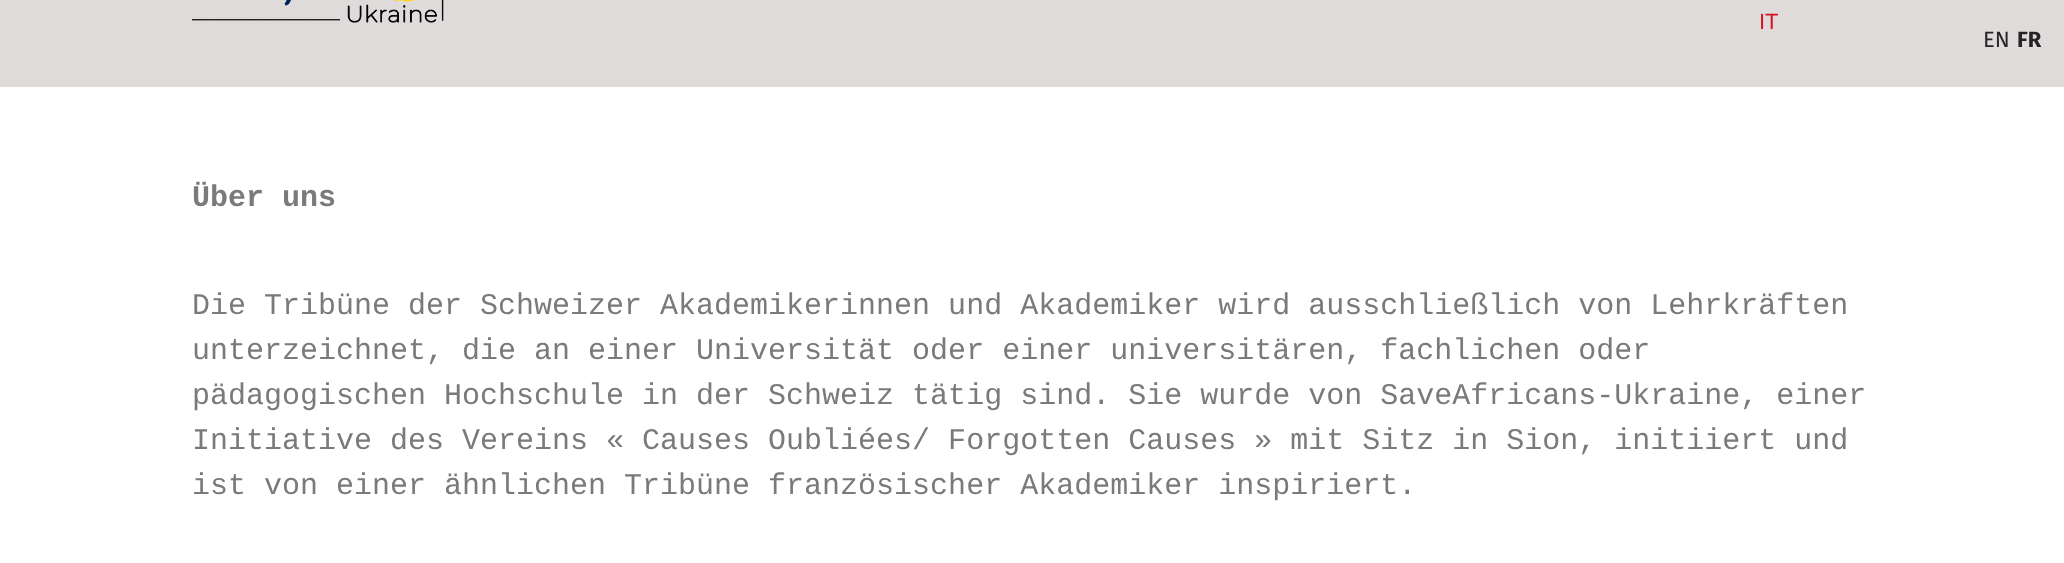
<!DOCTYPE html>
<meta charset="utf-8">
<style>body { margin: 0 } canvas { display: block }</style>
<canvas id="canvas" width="2064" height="563"></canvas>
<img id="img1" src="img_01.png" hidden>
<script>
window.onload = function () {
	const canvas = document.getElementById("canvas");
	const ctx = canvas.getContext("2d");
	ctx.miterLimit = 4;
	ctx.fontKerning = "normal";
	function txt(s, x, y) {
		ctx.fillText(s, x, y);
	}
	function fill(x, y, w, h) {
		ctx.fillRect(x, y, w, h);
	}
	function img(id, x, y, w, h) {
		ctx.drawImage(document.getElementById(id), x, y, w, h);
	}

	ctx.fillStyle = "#FFFFFF";
	fill(0, 0, 2064, 563);
	ctx.fillStyle = "#DFDBDB";
	fill(0, 0, 2064, 87);
	img("img1", 192, 0, 252, 23);
	ctx.font = "22px Liberation Sans";
	ctx.fillStyle = "#D61523";
	txt("IT", 1759, 29);
	ctx.font = "bold 30px Liberation Mono";
	ctx.fillStyle = "#7A7A7A";
	txt("Über uns", 192, 206);
	ctx.font = "30px Liberation Mono";
	txt("Die Tribüne der Schweizer Akademikerinnen und Akademiker wird ausschließlich von Lehrkräften", 192, 314);
	txt("unterzeichnet, die an einer Universität oder einer universitären, fachlichen oder", 192, 359);
	txt("pädagogischen Hochschule in der Schweiz tätig sind. Sie wurde von SaveAfricans-Ukraine, einer", 192, 404);
	txt("Initiative des Vereins « Causes Oubliées/ Forgotten Causes » mit Sitz in Sion, initiiert und", 192, 449);
	txt("ist von einer ähnlichen Tribüne französischer Akademiker inspiriert.", 192, 494);
	ctx.font = "22px Fira Sans";
	ctx.fillStyle = "#242424";
	txt("EN", 1983, 47);
	ctx.font = "bold 22px Fira Sans";
	txt("FR", 2017, 47);
};
</script>
